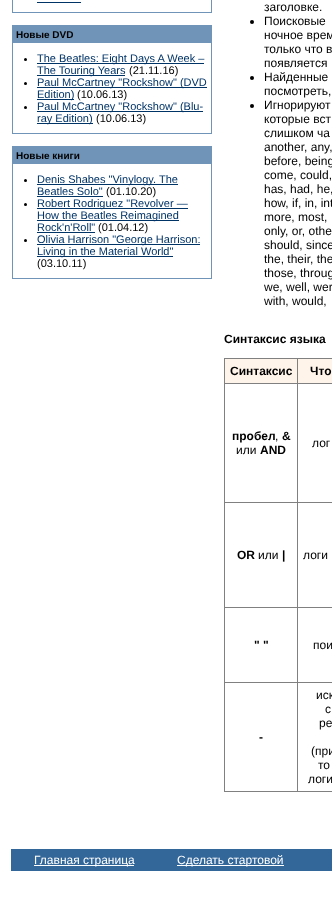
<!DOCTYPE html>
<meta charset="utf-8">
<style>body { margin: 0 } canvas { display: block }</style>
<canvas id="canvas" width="332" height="920"></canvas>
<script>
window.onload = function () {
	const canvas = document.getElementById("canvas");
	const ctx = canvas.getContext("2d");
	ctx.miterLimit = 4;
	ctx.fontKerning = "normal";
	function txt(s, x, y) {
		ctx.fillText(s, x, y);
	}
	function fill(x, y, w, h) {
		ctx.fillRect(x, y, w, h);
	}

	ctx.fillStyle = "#FFFFFF";
	fill(0, 0, 332, 920);
	ctx.fillStyle = "#7094B7";
	fill(12, 0, 200, 13);
	ctx.fillStyle = "#FFFFFF";
	fill(13, 0, 198, 12);
	ctx.fillStyle = "#003366";
	fill(37, 2, 44, 1);
	ctx.fillStyle = "#7094B7";
	fill(12, 25, 200, 109);
	ctx.fillStyle = "#FFFFFF";
	fill(13, 43, 198, 90);
	ctx.fillStyle = "#000000";
	ctx.beginPath();
	ctx.arc(25.5, 59.5, 1.5, 0, Math.PI * 2);
	ctx.fill();
	ctx.fillStyle = "#003366";
	fill(37, 63, 167, 1);
	fill(37, 75, 88, 1);
	ctx.fillStyle = "#000000";
	ctx.beginPath();
	ctx.arc(25.5, 83.5, 1.5, 0, Math.PI * 2);
	ctx.fill();
	ctx.fillStyle = "#003366";
	fill(37, 87, 170, 1);
	fill(37, 99, 37, 1);
	ctx.fillStyle = "#000000";
	ctx.beginPath();
	ctx.arc(25.5, 107.5, 1.5, 0, Math.PI * 2);
	ctx.fill();
	ctx.fillStyle = "#003366";
	fill(37, 111, 166, 1);
	fill(37, 123, 56, 1);
	ctx.fillStyle = "#7094B7";
	fill(12, 146, 200, 133);
	ctx.fillStyle = "#FFFFFF";
	fill(13, 164, 198, 114);
	ctx.fillStyle = "#000000";
	ctx.beginPath();
	ctx.arc(25.5, 180.5, 1.5, 0, Math.PI * 2);
	ctx.fill();
	ctx.fillStyle = "#003366";
	fill(37, 184, 141, 1);
	fill(37, 196, 66, 1);
	ctx.fillStyle = "#000000";
	ctx.beginPath();
	ctx.arc(25.5, 204.5, 1.5, 0, Math.PI * 2);
	ctx.fill();
	ctx.fillStyle = "#003366";
	fill(37, 208, 151, 1);
	fill(37, 220, 142, 1);
	fill(37, 232, 58, 1);
	ctx.fillStyle = "#000000";
	ctx.beginPath();
	ctx.arc(25.5, 240.5, 1.5, 0, Math.PI * 2);
	ctx.fill();
	ctx.fillStyle = "#003366";
	fill(37, 244, 163, 1);
	fill(37, 256, 136, 1);
	ctx.fillStyle = "#000000";
	ctx.beginPath();
	ctx.arc(252, 22, 2, 0, Math.PI * 2);
	ctx.fill();
	ctx.beginPath();
	ctx.arc(252, 78, 2, 0, Math.PI * 2);
	ctx.fill();
	ctx.beginPath();
	ctx.arc(252, 106, 2, 0, Math.PI * 2);
	ctx.fill();
	ctx.fillStyle = "#808080";
	fill(224, 358, 108, 1);
	fill(224, 791, 108, 1);
	fill(224, 358, 1, 434);
	ctx.fillStyle = "#FFF4E9";
	fill(225, 359, 107, 24);
	ctx.fillStyle = "#808080";
	fill(297, 383, 35, 1);
	fill(297, 502, 35, 1);
	fill(297, 607, 35, 1);
	fill(297, 682, 35, 1);
	fill(297, 682, 1, 110);
	fill(224, 682, 74, 1);
	fill(297, 607, 1, 76);
	fill(224, 607, 74, 1);
	fill(297, 502, 1, 106);
	fill(224, 502, 74, 1);
	fill(297, 383, 1, 120);
	fill(224, 383, 74, 1);
	fill(297, 358, 1, 26);
	ctx.fillStyle = "#336699";
	fill(11, 849, 321, 22);
	ctx.fillStyle = "#FFFFFF";
	fill(34, 865, 100, 1);
	fill(177, 865, 107, 1);
	ctx.font = "bold 10px Liberation Sans";
	ctx.fillStyle = "#000000";
	txt("Новые DVD", 16, 38);
	ctx.font = "11px Liberation Sans";
	ctx.fillStyle = "#003366";
	txt("The Beatles: Eight Days A Week –", 37, 62);
	txt("The Touring Years", 37, 74);
	ctx.fillStyle = "#000000";
	txt("(21.11.16)", 129, 74);
	ctx.fillStyle = "#003366";
	txt("Paul McCartney \"Rockshow\" (DVD", 37, 86);
	txt("Edition)", 37, 98);
	ctx.fillStyle = "#000000";
	txt("(10.06.13)", 77, 98);
	ctx.fillStyle = "#003366";
	txt("Paul McCartney \"Rockshow\" (Blu-", 37, 110);
	txt("ray Edition)", 37, 122);
	ctx.fillStyle = "#000000";
	txt("(10.06.13)", 96, 122);
	ctx.font = "bold 10px Liberation Sans";
	txt("Новые книги", 16, 159);
	ctx.font = "11px Liberation Sans";
	ctx.fillStyle = "#003366";
	txt("Denis Shabes \"Vinylogy. The", 37, 183);
	txt("Beatles Solo\"", 37, 195);
	ctx.fillStyle = "#000000";
	txt("(01.10.20)", 106, 195);
	ctx.fillStyle = "#003366";
	txt("Robert Rodriguez \"Revolver —", 37, 207);
	txt("How the Beatles Reimagined", 37, 219);
	txt("Rock'n'Roll\"", 37, 231);
	ctx.fillStyle = "#000000";
	txt("(01.04.12)", 98, 231);
	ctx.fillStyle = "#003366";
	txt("Olivia Harrison \"George Harrison:", 37, 243);
	txt("Living in the Material World\"", 37, 255);
	ctx.fillStyle = "#000000";
	txt("(03.10.11)", 37, 267);
	ctx.font = "12px Liberation Sans";
	txt("заголовке.", 264, 11);
	txt("Поисковые", 264, 25);
	txt("ночное врем", 264, 39);
	txt("только что в", 264, 53);
	txt("появляется", 264, 67);
	txt("Найденные", 264, 81);
	txt("посмотреть,", 264, 95);
	txt("Игнорируют", 264, 109);
	txt("которые вст", 264, 123);
	txt("слишком ча", 264, 137);
	txt("another, any,", 264, 151);
	txt("before, being", 264, 165);
	txt("come, could,", 264, 179);
	txt("has, had, he,", 264, 193);
	txt("how, if, in, int", 264, 207);
	txt("more, most,", 264, 221);
	txt("only, or, othe", 264, 235);
	txt("should, since", 264, 249);
	txt("the, their, the", 264, 263);
	txt("those, throug", 264, 277);
	txt("we, well, wer", 264, 291);
	txt("with, would,", 264, 305);
	ctx.font = "bold 12px Liberation Sans";
	txt("Синтаксис языка", 224, 343);
	txt("Синтаксис", 230, 375);
	txt("Что", 310, 375);
	txt("пробел", 232, 440);
	ctx.font = "12px Liberation Sans";
	txt(",", 275, 440);
	ctx.font = "bold 12px Liberation Sans";
	txt("&", 282, 440);
	ctx.font = "12px Liberation Sans";
	txt("или", 236, 454);
	ctx.font = "bold 12px Liberation Sans";
	txt("AND", 260, 454);
	ctx.font = "12px Liberation Sans";
	txt("лог", 312, 447);
	ctx.font = "bold 12px Liberation Sans";
	txt("OR", 237, 559);
	ctx.font = "12px Liberation Sans";
	txt("или", 258, 559);
	ctx.font = "bold 12px Liberation Sans";
	txt("|", 282, 559);
	ctx.font = "12px Liberation Sans";
	txt("логи", 303, 559);
	ctx.font = "bold 12px Liberation Sans";
	txt("\" \"", 254, 649);
	ctx.font = "12px Liberation Sans";
	txt("пои", 313, 649);
	ctx.font = "bold 12px Liberation Sans";
	txt("-", 259, 741);
	ctx.font = "12px Liberation Sans";
	txt("иск", 316, 699);
	txt("с", 325, 713);
	txt("ре", 319, 727);
	txt("(при", 311, 755);
	txt("то", 318, 769);
	txt("логи", 308, 783);
	ctx.fillStyle = "#FFFFFF";
	txt("Главная страница", 34, 864);
	txt("Сделать стартовой", 177, 864);
};
</script>
